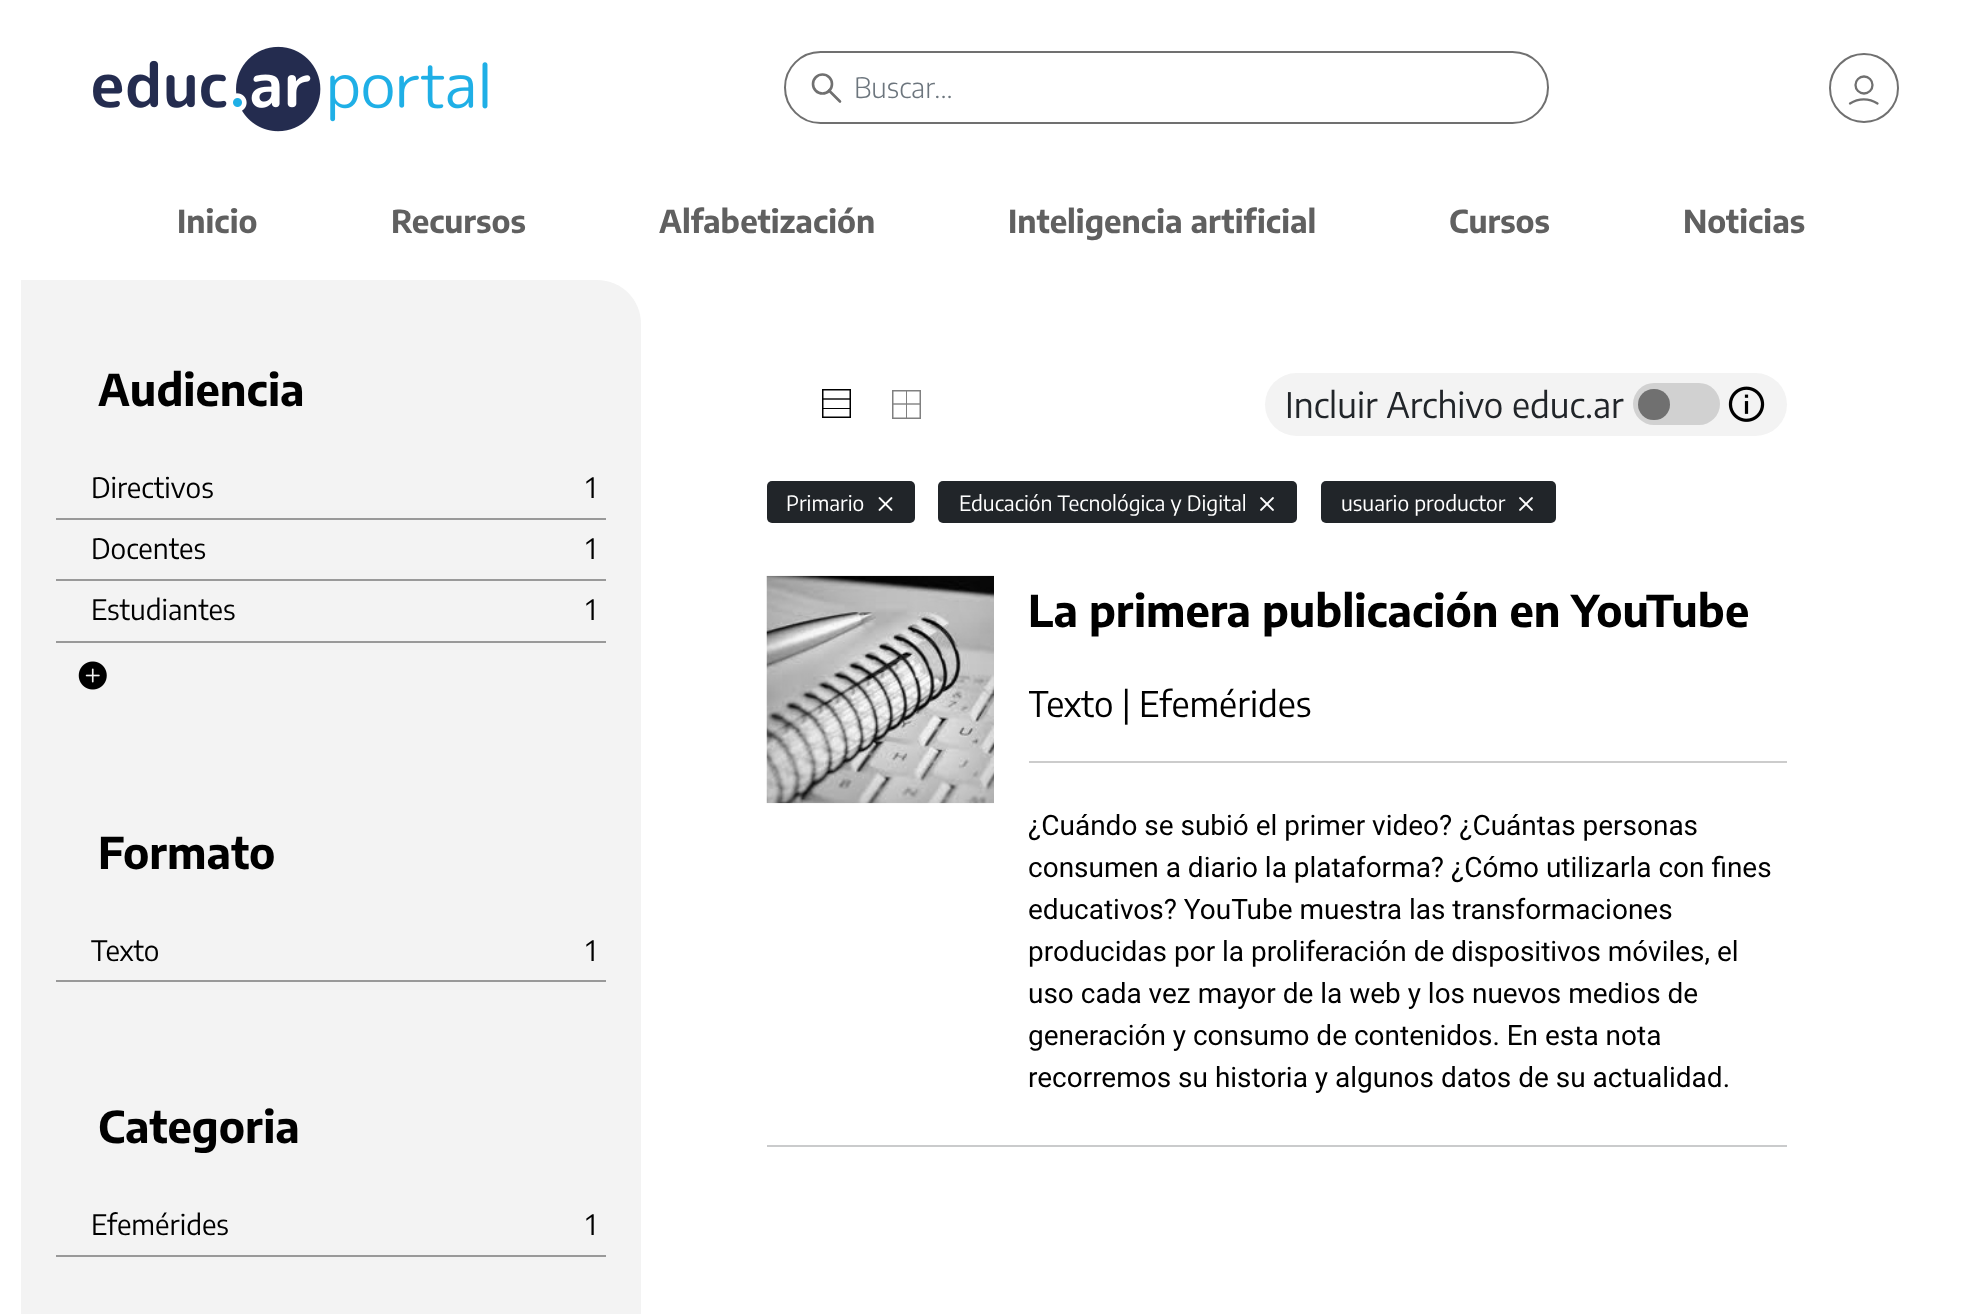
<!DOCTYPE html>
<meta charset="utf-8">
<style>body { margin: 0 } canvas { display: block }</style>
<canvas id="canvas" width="1982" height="1314"></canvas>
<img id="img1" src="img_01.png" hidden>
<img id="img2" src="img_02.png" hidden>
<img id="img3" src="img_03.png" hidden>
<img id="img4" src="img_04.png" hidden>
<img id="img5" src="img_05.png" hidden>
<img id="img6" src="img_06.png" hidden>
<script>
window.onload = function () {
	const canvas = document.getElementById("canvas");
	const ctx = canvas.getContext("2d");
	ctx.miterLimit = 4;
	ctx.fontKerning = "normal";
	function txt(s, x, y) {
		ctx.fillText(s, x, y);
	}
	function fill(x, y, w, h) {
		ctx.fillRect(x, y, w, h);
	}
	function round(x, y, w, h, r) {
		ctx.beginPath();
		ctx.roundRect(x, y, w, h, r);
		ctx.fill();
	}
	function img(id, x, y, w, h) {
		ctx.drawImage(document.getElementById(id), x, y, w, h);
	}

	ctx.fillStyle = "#FFFFFF";
	fill(0, 0, 1982, 1314);
	img("img1", 93, 46, 395, 86);
	ctx.beginPath();
	ctx.roundRect(785, 52, 763, 71, 35.5);
	ctx.strokeStyle = "#707070";
	ctx.lineWidth = 2;
	ctx.stroke();
	ctx.beginPath();
	ctx.arc(822.5, 84, 9.5, 0, Math.PI * 2);
	ctx.lineWidth = 2.6;
	ctx.stroke();
	ctx.beginPath();
	ctx.moveTo(840, 101.5);
	ctx.lineTo(829, 90.5);
	ctx.lineCap = "round";
	ctx.lineJoin = "round";
	ctx.stroke();
	ctx.beginPath();
	ctx.arc(1864, 88, 34, 0, Math.PI * 2);
	ctx.lineWidth = 2;
	ctx.stroke();
	ctx.beginPath();
	ctx.arc(1864, 85, 8.5, 0, Math.PI * 2);
	ctx.lineWidth = 2.3;
	ctx.stroke();
	ctx.beginPath();
	ctx.moveTo(1850, 103.5);
	ctx.bezierCurveTo(1858.5, 98, 1869, 98, 1877.5, 103.5);
	ctx.stroke();
	ctx.fillStyle = "#F3F3F3";
	ctx.beginPath();
	ctx.moveTo(21, 280);
	ctx.lineTo(597, 280);
	ctx.bezierCurveTo(621.5, 280, 641, 299.5, 641, 324);
	ctx.lineTo(641, 1314);
	ctx.bezierCurveTo(641, 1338.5, 621.5, 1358, 597, 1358);
	ctx.lineTo(21, 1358);
	ctx.closePath();
	ctx.fill();
	ctx.fillStyle = "#999999";
	fill(56, 518, 550, 2);
	fill(56, 579, 550, 2);
	fill(56, 641, 550, 2);
	img("img2", 78, 661, 29, 29);
	fill(56, 980, 550, 2);
	fill(56, 1255, 550, 2);
	ctx.strokeStyle = "#000000";
	ctx.lineWidth = 1.5;
	ctx.lineJoin = "miter";
	ctx.strokeRect(822.75, 389.75, 27.5, 27.5);
	ctx.beginPath();
	ctx.moveTo(823, 399);
	ctx.lineTo(850, 399);
	ctx.lineWidth = 1.4;
	ctx.lineCap = "butt";
	ctx.stroke();
	ctx.fillStyle = "#000000";
	fill(823, 408, 27, 1);
	ctx.strokeStyle = "#808080";
	ctx.lineWidth = 1.5;
	ctx.strokeRect(892.75, 390.75, 27.5, 27.5);
	ctx.beginPath();
	ctx.moveTo(893, 404);
	ctx.lineTo(920, 404);
	ctx.lineWidth = 1.4;
	ctx.stroke();
	ctx.fillStyle = "#808080";
	fill(906, 391, 1, 27);
	ctx.fillStyle = "#F3F3F3";
	round(1265, 373, 522, 63, 31.5);
	ctx.fillStyle = "#D1D1D1";
	round(1633, 383, 87, 42, 21);
	ctx.fillStyle = "#707070";
	round(1638, 389, 32, 31, 15.5);
	img("img3", 1728, 386, 37, 36);
	ctx.fillStyle = "#212529";
	round(767, 481, 148, 42, 5);
	img("img4", 878, 497, 15, 14);
	round(938, 481, 359, 42, 5);
	img("img5", 1260, 497, 14, 14);
	round(1321, 481, 235, 42, 5);
	img("img5", 1519, 497, 14, 14);
	ctx.fillStyle = "#CACBCC";
	fill(767, 1145, 1020, 2);
	img("img6", 766, 575, 228, 229);
	ctx.fillStyle = "#CCCCCC";
	fill(1029, 761, 758, 2);
	ctx.font = "300 28px Encode Sans Condensed";
	ctx.fillStyle = "#6C757D";
	txt("Buscar...", 854, 98);
	ctx.font = "bold 31.5px Encode Sans Condensed";
	ctx.fillStyle = "#606060";
	txt("Inicio", 177, 233);
	txt("Recursos", 391, 233);
	txt("Alfabetización", 659, 233);
	txt("Inteligencia artificial", 1008, 233);
	txt("Cursos", 1449, 233);
	txt("Noticias", 1683, 233);
	ctx.font = "bold 43.75px Encode Sans Condensed";
	ctx.fillStyle = "#000000";
	txt("Audiencia", 98, 406);
	ctx.font = "28px Encode Sans Condensed";
	txt("Directivos", 91, 498);
	txt("1", 586, 498);
	txt("Docentes", 91, 559);
	txt("1", 586, 559);
	txt("Estudiantes", 91, 620);
	txt("1", 586, 620);
	ctx.font = "bold 43.75px Encode Sans Condensed";
	txt("Formato", 98, 869);
	ctx.font = "28px Encode Sans Condensed";
	txt("Texto", 91, 961);
	txt("1", 586, 961);
	ctx.font = "bold 43.75px Encode Sans Condensed";
	txt("Categoria", 98, 1143);
	ctx.font = "28px Encode Sans Condensed";
	txt("Efemérides", 91, 1235);
	txt("1", 586, 1235);
	ctx.font = "35px Encode Sans Condensed";
	ctx.fillStyle = "#212529";
	txt("Incluir Archivo educ.ar", 1285, 418);
	ctx.font = "21px Encode Sans Condensed";
	ctx.fillStyle = "#FFFFFF";
	txt("Primario", 786, 511);
	txt("Educación Tecnológica y Digital", 959, 511);
	txt("usuario productor", 1341, 511);
	ctx.font = "bold 43.7px Encode Sans Condensed";
	ctx.fillStyle = "#000000";
	txt("La primera publicación en YouTube", 1028, 627);
	ctx.save();
	ctx.beginPath();
	ctx.rect(1029, 576, 758, 551);
	ctx.clip();
	ctx.font = "35px Encode Sans Condensed";
	txt("Texto", 1028, 717);
	ctx.restore();
	ctx.font = "35px Encode Sans Condensed";
	txt("| Efemérides", 1122, 717);
	ctx.font = "28px Roboto";
	txt("¿Cuándo se subió el primer video? ¿Cuántas personas", 1028, 835);
	txt("consumen a diario la plataforma? ¿Cómo utilizarla con fines", 1028, 877);
	txt("educativos? YouTube muestra las transformaciones", 1028, 919);
	txt("producidas por la proliferación de dispositivos móviles, el", 1028, 961);
	txt("uso cada vez mayor de la web y los nuevos medios de", 1028, 1003);
	txt("generación y consumo de contenidos. En esta nota", 1028, 1045);
	txt("recorremos su historia y algunos datos de su actualidad.", 1028, 1087);
};
</script>
